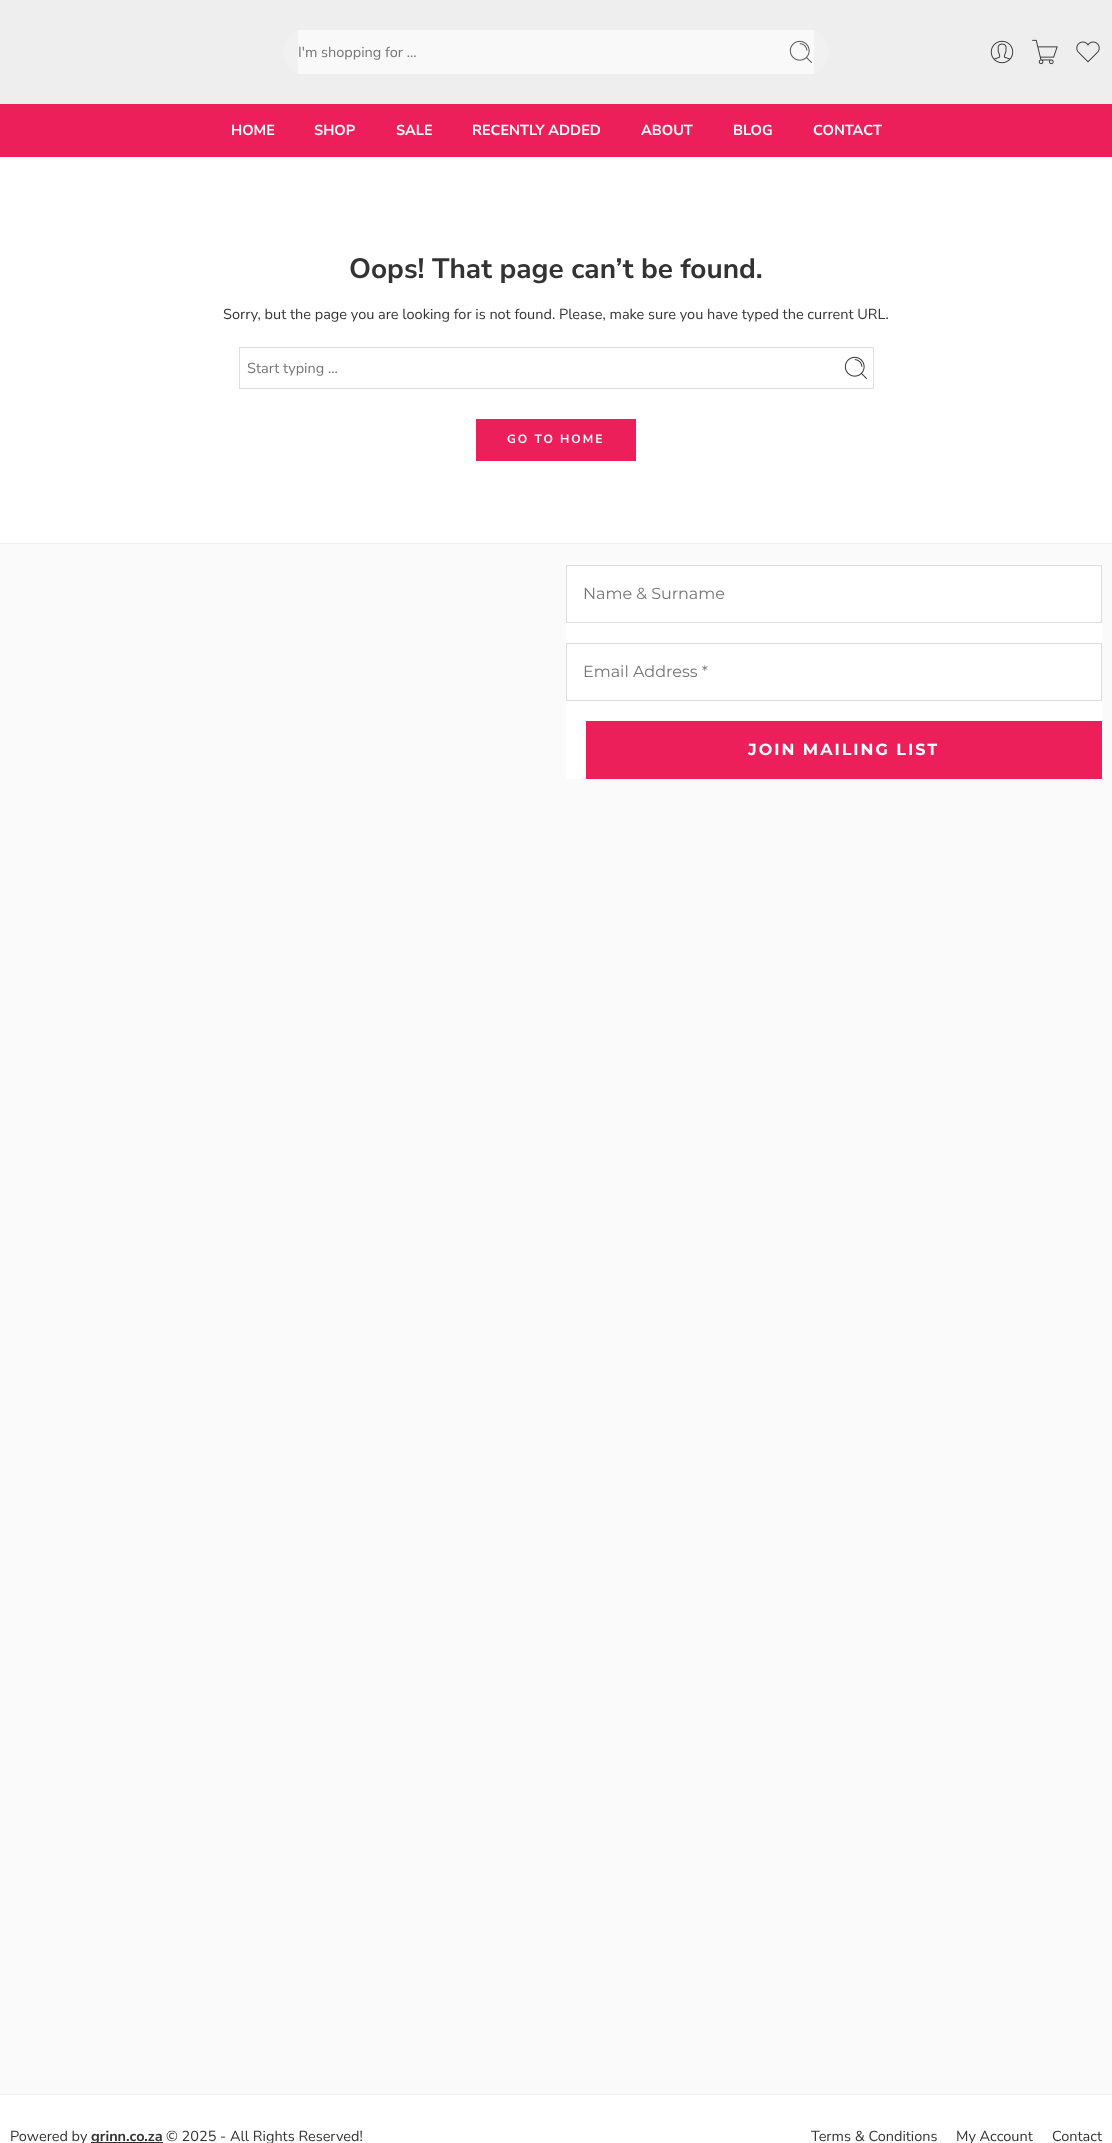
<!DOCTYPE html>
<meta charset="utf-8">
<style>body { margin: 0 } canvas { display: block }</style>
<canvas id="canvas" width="1112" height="2143"></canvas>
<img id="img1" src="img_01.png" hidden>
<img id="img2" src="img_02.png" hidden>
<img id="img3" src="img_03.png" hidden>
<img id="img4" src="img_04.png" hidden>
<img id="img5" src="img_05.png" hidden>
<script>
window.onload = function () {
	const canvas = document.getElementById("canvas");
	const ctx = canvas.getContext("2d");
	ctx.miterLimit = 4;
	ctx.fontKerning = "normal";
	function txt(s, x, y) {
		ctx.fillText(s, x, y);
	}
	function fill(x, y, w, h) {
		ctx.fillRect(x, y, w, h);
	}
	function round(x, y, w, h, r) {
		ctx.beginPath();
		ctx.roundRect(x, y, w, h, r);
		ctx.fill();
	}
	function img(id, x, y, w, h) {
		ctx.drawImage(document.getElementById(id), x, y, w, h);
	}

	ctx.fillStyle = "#EEEEEE";
	fill(0, 0, 1112, 2143);
	ctx.fillStyle = "#F1F1F1";
	round(283, 30, 546, 44, 22);
	ctx.fillStyle = "rgba(255, 255, 255, 0.6)";
	fill(298, 30, 516, 44);
	img("img1", 789, 40, 23, 24);
	img("img2", 990, 40, 24, 24);
	img("img3", 1032, 39, 26, 26);
	img("img4", 1076, 41, 24, 22);
	ctx.fillStyle = "#EC1F5A";
	fill(0, 104, 1112, 53);
	ctx.fillStyle = "#FFFFFF";
	fill(0, 157, 1112, 386);
	ctx.strokeStyle = "#DEDEDE";
	ctx.strokeRect(239.5, 347.5, 634, 41);
	img("img5", 844, 356, 24, 24);
	ctx.fillStyle = "#EC1F5A";
	fill(476, 419, 160, 42);
	ctx.fillStyle = "#FAFAFA";
	fill(0, 544, 1112, 1550);
	ctx.fillStyle = "#FFFFFF";
	fill(566, 564, 536, 215);
	ctx.strokeRect(566.5, 565.5, 535, 57);
	ctx.strokeRect(566.5, 643.5, 535, 57);
	ctx.fillStyle = "#EC1F5A";
	fill(586, 721, 516, 58);
	ctx.fillStyle = "#FFFFFF";
	fill(0, 2095, 1112, 48);
	ctx.fillStyle = "#333333";
	fill(91, 2142, 72, 1);
	ctx.font = "14.5px Nunito Sans";
	ctx.fillStyle = "#757575";
	txt("I'm shopping for ...", 298, 57);
	ctx.font = "bold 14.5px Nunito Sans";
	ctx.fillStyle = "#FFFFFF";
	txt("HOME", 231, 135);
	txt("SHOP", 314, 135);
	txt("SALE", 396, 135);
	txt("RECENTLY ADDED", 472, 135);
	txt("ABOUT", 641, 135);
	txt("BLOG", 733, 135);
	txt("CONTACT", 813, 135);
	ctx.font = "bold 28px Nunito Sans";
	ctx.fillStyle = "#333333";
	txt("Oops! That page can’t be found.", 349, 278);
	ctx.font = "14.5px Nunito Sans";
	txt("Sorry, but the page you are looking for is not found. Please, make sure you have typed the current URL.", 223, 319);
	ctx.fillStyle = "#757575";
	txt("Start typing ...", 247, 373);
	ctx.letterSpacing = "2px";
	ctx.font = "bold 12px Nunito Sans";
	ctx.fillStyle = "#FFFFFF";
	txt("GO TO HOME", 507, 443);
	ctx.letterSpacing = "0px";
	ctx.font = "16px Montserrat";
	ctx.fillStyle = "#757575";
	txt("Name & Surname", 583, 599);
	txt("Email Address *", 583, 677);
	ctx.letterSpacing = "2px";
	ctx.font = "bold 16px Montserrat";
	ctx.fillStyle = "#FFFFFF";
	txt("JOIN MAILING LIST", 748, 755);
	ctx.letterSpacing = "0px";
	ctx.font = "14.5px Nunito Sans";
	ctx.fillStyle = "#333333";
	txt("Powered by", 10, 2141);
	ctx.font = "bold 14.5px Nunito Sans";
	txt("grinn.co.za", 91, 2141);
	ctx.font = "14.5px Nunito Sans";
	txt("© 2025 - All Rights Reserved!", 166, 2141);
	txt("Terms & Conditions", 811, 2141);
	txt("My Account", 956, 2141);
	txt("Contact", 1052, 2141);
};
</script>
